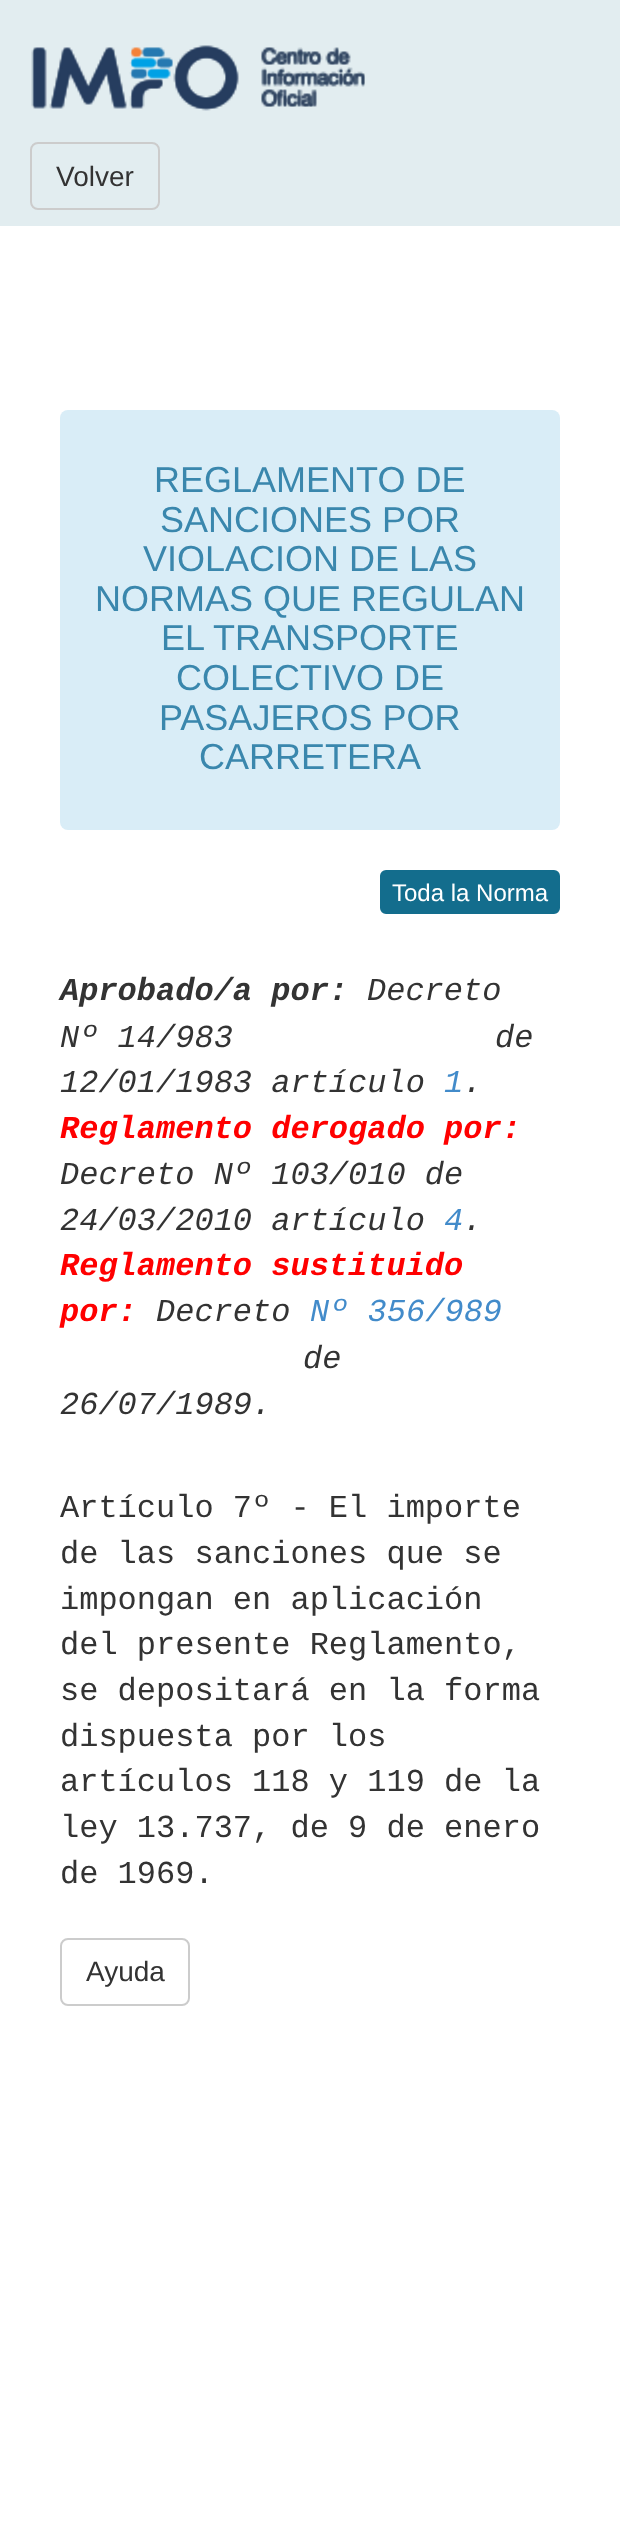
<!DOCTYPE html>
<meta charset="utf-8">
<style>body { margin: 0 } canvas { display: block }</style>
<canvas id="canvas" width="620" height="2524"></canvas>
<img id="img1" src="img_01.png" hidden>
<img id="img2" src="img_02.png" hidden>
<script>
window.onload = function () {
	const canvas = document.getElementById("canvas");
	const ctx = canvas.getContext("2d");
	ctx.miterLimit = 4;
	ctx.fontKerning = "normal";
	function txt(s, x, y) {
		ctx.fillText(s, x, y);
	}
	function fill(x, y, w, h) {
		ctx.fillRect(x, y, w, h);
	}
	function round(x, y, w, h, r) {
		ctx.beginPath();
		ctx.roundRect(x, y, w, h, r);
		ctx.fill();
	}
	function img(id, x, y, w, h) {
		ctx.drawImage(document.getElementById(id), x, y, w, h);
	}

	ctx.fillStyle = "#FFFFFF";
	fill(0, 0, 620, 2524);
	ctx.fillStyle = "#E2EDF0";
	fill(0, 0, 620, 226);
	img("img1", 31, 45, 334, 66);
	img("img2", 31, 45, 334, 66);
	ctx.beginPath();
	ctx.roundRect(31, 143, 128, 66, 7);
	ctx.strokeStyle = "#CCCCCC";
	ctx.lineWidth = 2;
	ctx.stroke();
	ctx.fillStyle = "#D9EDF7";
	round(60, 410, 500, 420, 8);
	ctx.fillStyle = "#136D8D";
	ctx.beginPath();
	ctx.roundRect(381, 871, 178, 42, 5);
	ctx.fill();
	ctx.strokeStyle = "#136D8D";
	ctx.stroke();
	ctx.beginPath();
	ctx.roundRect(61, 1939, 128, 66, 7);
	ctx.strokeStyle = "#CCCCCC";
	ctx.stroke();
	ctx.font = "28px Liberation Sans";
	ctx.fillStyle = "#333333";
	txt("Volver", 56, 186);
	ctx.font = "36px Liberation Sans";
	ctx.fillStyle = "#3A87AD";
	txt("REGLAMENTO DE", 154, 492);
	txt("SANCIONES POR", 160, 532);
	txt("VIOLACION DE LAS", 143, 571);
	txt("NORMAS QUE REGULAN", 95, 611);
	txt("EL TRANSPORTE", 161, 650);
	txt("COLECTIVO DE", 176, 690);
	txt("PASAJEROS POR", 159, 730);
	txt("CARRETERA", 199, 769);
	ctx.font = "24px Liberation Sans";
	ctx.fillStyle = "#FFFFFF";
	txt("Toda la Norma", 392, 901);
	ctx.font = "italic bold 32px Liberation Mono";
	ctx.fillStyle = "#333333";
	txt("Aprobado/a por:", 60, 1000);
	ctx.font = "italic 32px Liberation Mono";
	txt("Decreto", 367, 1000);
	txt("Nº 14/983", 60, 1047);
	txt("de", 495, 1047);
	txt("12/01/1983 artículo", 60, 1092);
	ctx.fillStyle = "#428BCA";
	txt("1", 444, 1092);
	ctx.fillStyle = "#333333";
	txt(".", 463, 1092);
	ctx.font = "italic bold 32px Liberation Mono";
	ctx.fillStyle = "#FF0000";
	txt("Reglamento derogado por:", 60, 1138);
	ctx.font = "italic 32px Liberation Mono";
	ctx.fillStyle = "#333333";
	txt("Decreto Nº 103/010 de", 60, 1184);
	txt("24/03/2010 artículo", 60, 1230);
	ctx.fillStyle = "#428BCA";
	txt("4", 444, 1230);
	ctx.fillStyle = "#333333";
	txt(".", 463, 1230);
	ctx.font = "italic bold 32px Liberation Mono";
	ctx.fillStyle = "#FF0000";
	txt("Reglamento sustituido", 60, 1275);
	txt("por:", 60, 1321);
	ctx.font = "italic 32px Liberation Mono";
	ctx.fillStyle = "#333333";
	txt("Decreto", 156, 1321);
	ctx.fillStyle = "#428BCA";
	txt("Nº 356/989", 310, 1321);
	ctx.fillStyle = "#333333";
	txt("de", 303, 1368);
	txt("26/07/1989.", 60, 1414);
	ctx.font = "32px Liberation Mono";
	txt("Artículo 7º - El importe", 60, 1517);
	txt("de las sanciones que se", 60, 1563);
	txt("impongan en aplicación", 60, 1609);
	txt("del presente Reglamento,", 60, 1654);
	txt("se depositará en la forma", 60, 1700);
	txt("dispuesta por los", 60, 1746);
	txt("artículos 118 y 119 de la", 60, 1791);
	txt("ley 13.737, de 9 de enero", 60, 1837);
	txt("de 1969.", 60, 1883);
	ctx.font = "28px Liberation Sans";
	txt("Ayuda", 86, 1981);
};
</script>
